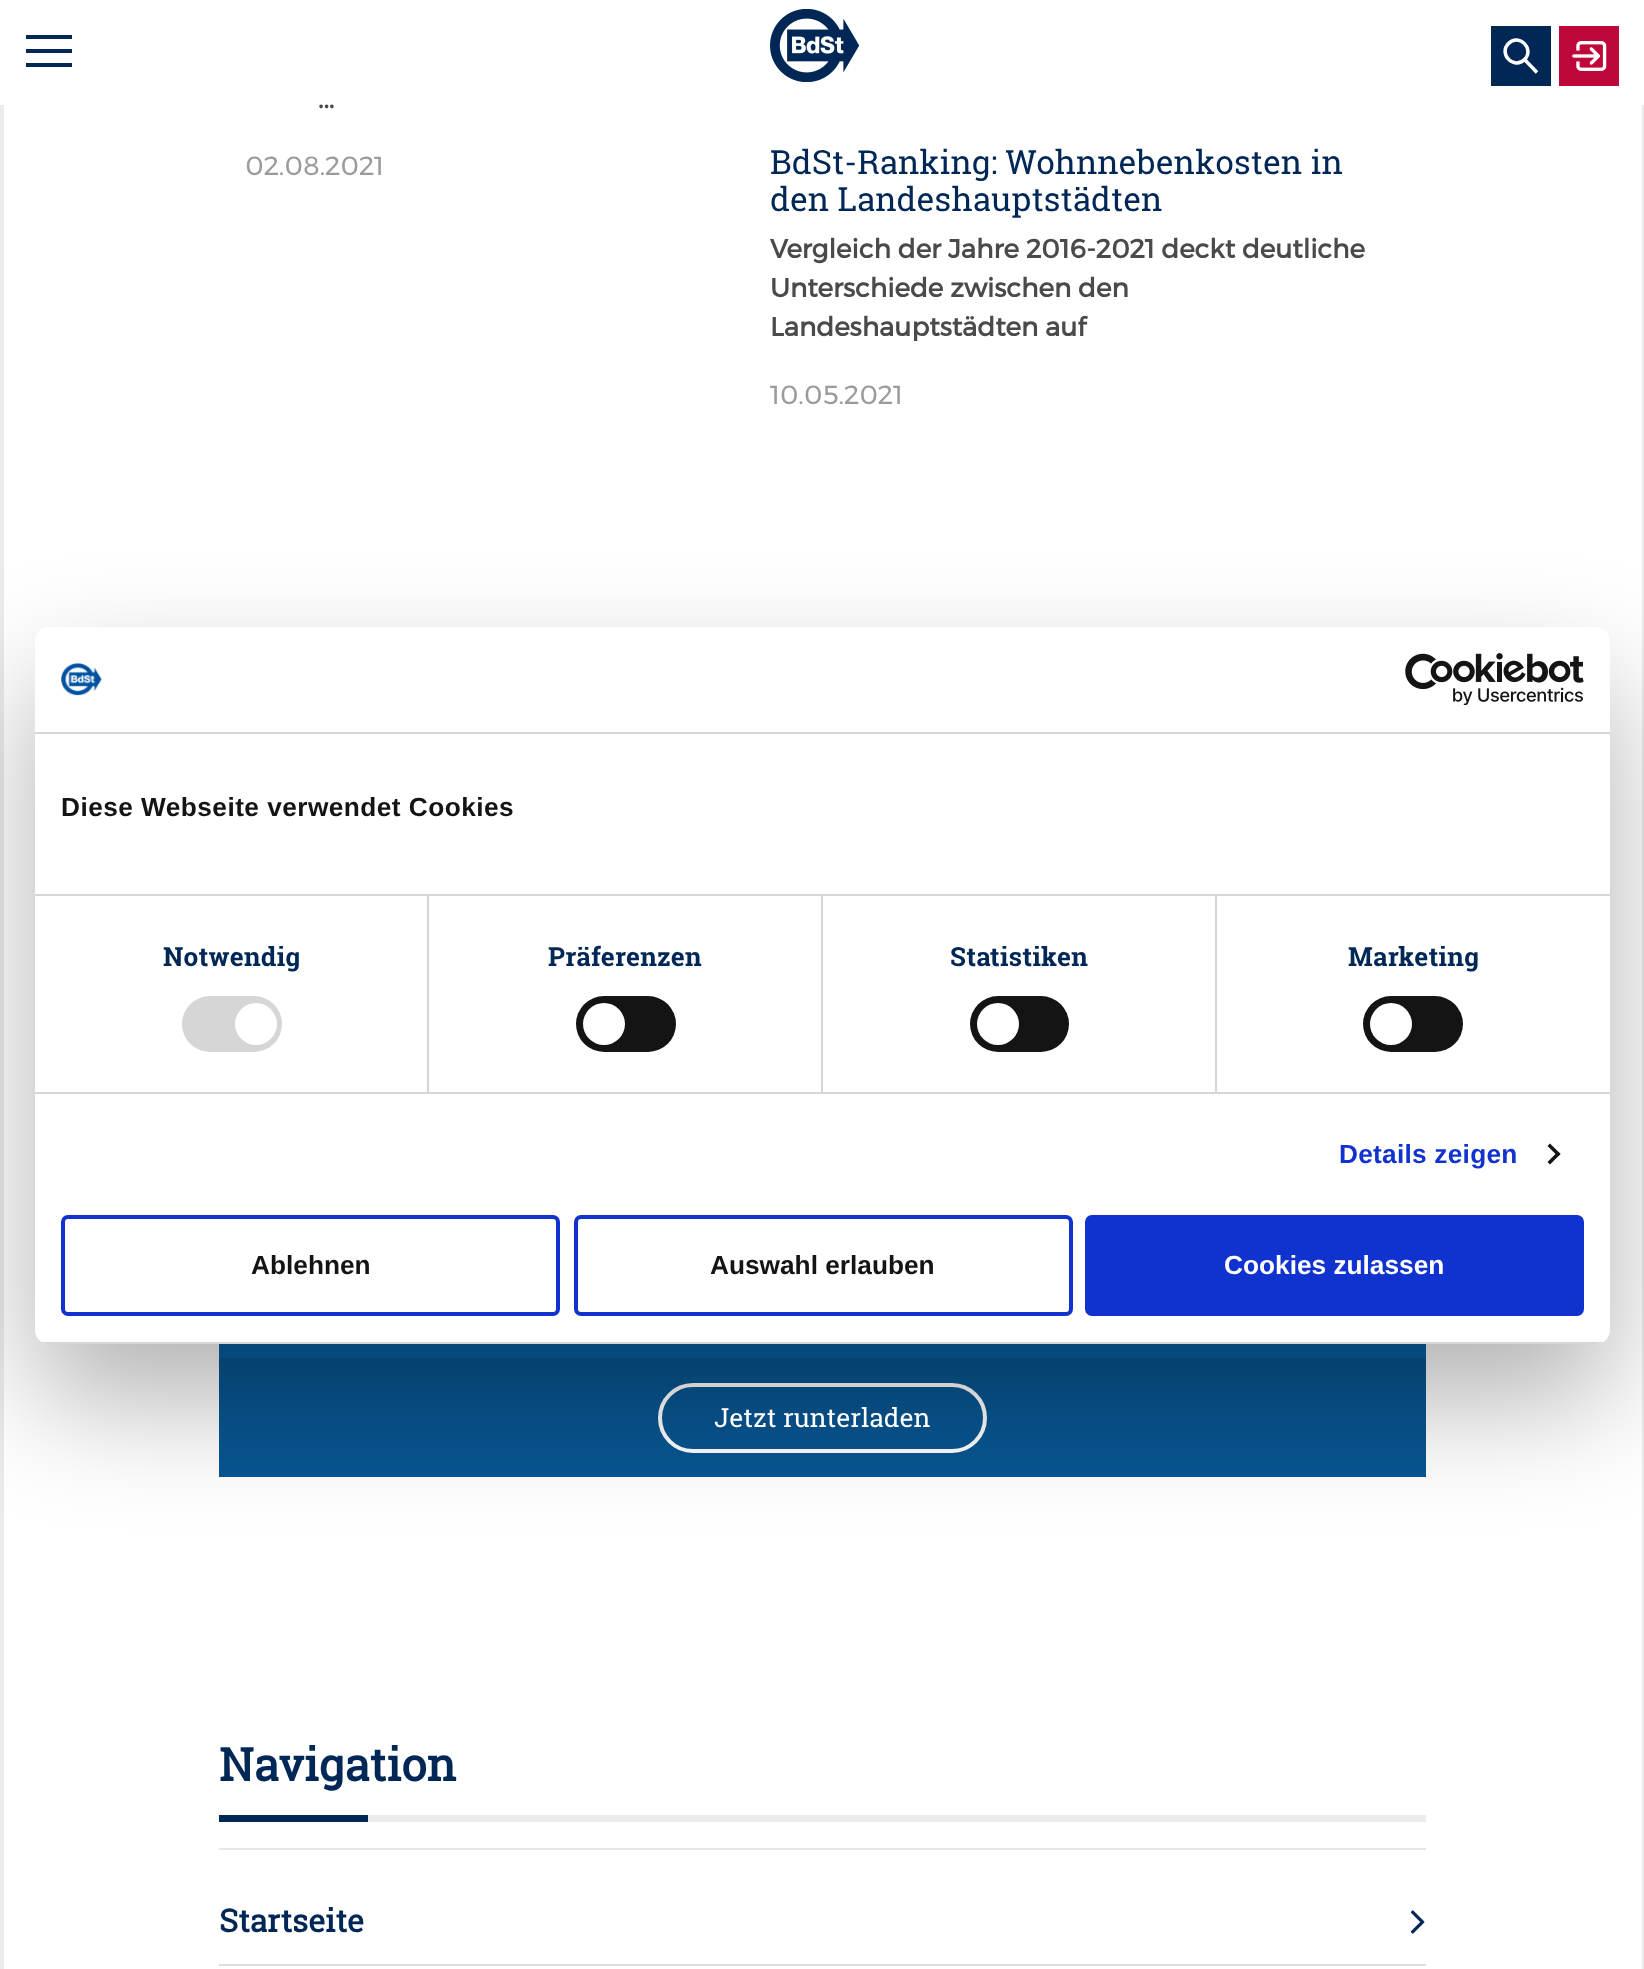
<!DOCTYPE html>
<meta charset="utf-8">
<style>body { margin: 0 } canvas { display: block }</style>
<canvas id="canvas" width="1644" height="1969"></canvas>
<img id="img1" src="img_01.png" hidden>
<img id="img2" src="img_02.png" hidden>
<img id="img3" src="img_03.png" hidden>
<img id="img4" src="img_04.png" hidden>
<img id="img5" src="img_05.png" hidden>
<script>
window.onload = function () {
	const canvas = document.getElementById("canvas");
	const ctx = canvas.getContext("2d");
	ctx.miterLimit = 4;
	ctx.fontKerning = "normal";
	function txt(s, x, y) {
		ctx.fillText(s, x, y);
	}
	function fill(x, y, w, h) {
		ctx.fillRect(x, y, w, h);
	}
	function round(x, y, w, h, r) {
		ctx.beginPath();
		ctx.roundRect(x, y, w, h, r);
		ctx.fill();
	}
	function img(id, x, y, w, h) {
		ctx.drawImage(document.getElementById(id), x, y, w, h);
	}

	ctx.fillStyle = "#FFFFFF";
	fill(0, 0, 1644, 1969);
	ctx.fillStyle = "#012756";
	fill(26, 35, 46, 4);
	fill(26, 49, 46, 4);
	fill(26, 63, 46, 4);
	img("img1", 770, 9, 89, 73);
	fill(1491, 26, 60, 60);
	ctx.beginPath();
	ctx.moveTo(1508.5, 43.5);
	ctx.bezierCurveTo(1519, 33, 1535, 49, 1524.5, 59.5);
	ctx.bezierCurveTo(1514, 70, 1498, 54, 1508.5, 43.5);
	ctx.closePath();
	ctx.moveTo(1524.5, 59.5);
	ctx.lineTo(1537, 72.5);
	ctx.strokeStyle = "#FFFFFF";
	ctx.lineWidth = 3.5;
	ctx.stroke();
	ctx.fillStyle = "#BE0839";
	fill(1559, 26, 60, 60);
	img("img2", 1572, 41, 35, 30);
	ctx.fillStyle = "#EBEBEB";
	fill(1642, 105, 2, 1864);
	fill(0, 105, 4, 1864);
	ctx.fillStyle = "#0960A2";
	fill(219, 1344, 1207, 14);
	ctx.fillStyle = "#085692";
	fill(219, 1358, 1207, 119);
	ctx.beginPath();
	ctx.roundRect(660, 1385, 325, 66, 33);
	ctx.lineWidth = 4;
	ctx.stroke();
	ctx.fillStyle = "#EBEBEB";
	fill(368, 1815, 1058, 7);
	ctx.fillStyle = "#012756";
	fill(219, 1815, 149, 7);
	ctx.fillStyle = "#E6E6E6";
	fill(219, 1848, 1207, 2);
	ctx.fillStyle = "#DCDCDC";
	fill(219, 1964, 1207, 2);
	img("img3", 1410, 1910, 15, 24);
	ctx.fillStyle = "rgba(0, 0, 0, 0.3)";
	ctx.filter = "blur(59.5px)";
	ctx.beginPath();
	ctx.roundRect(35, 683, 1575, 717, 14);
	ctx.fill();
	ctx.filter = "none";
	ctx.fillStyle = "#FFFFFF";
	round(35, 627, 1575, 717, 14);
	ctx.fillStyle = "#D6D6D6";
	fill(35, 732, 1575, 2);
	img("img4", 61, 663, 41, 33);
	img("img5", 1405, 653, 179, 52);
	fill(35, 894, 1575, 2);
	fill(35, 1092, 1575, 2);
	fill(427, 896, 2, 196);
	round(182, 996, 100, 56, 28);
	ctx.fillStyle = "#FFFFFF";
	ctx.beginPath();
	ctx.arc(256, 1024, 21, 0, Math.PI * 2);
	ctx.fill();
	ctx.fillStyle = "#D6D6D6";
	fill(821, 896, 2, 196);
	ctx.fillStyle = "#141414";
	round(576, 996, 100, 56, 28);
	ctx.fillStyle = "#FFFFFF";
	ctx.beginPath();
	ctx.arc(604, 1024, 21, 0, Math.PI * 2);
	ctx.fill();
	ctx.fillStyle = "#D6D6D6";
	fill(1215, 896, 2, 196);
	ctx.fillStyle = "#141414";
	round(970, 996, 99, 56, 28);
	ctx.fillStyle = "#FFFFFF";
	ctx.beginPath();
	ctx.arc(998, 1024, 21, 0, Math.PI * 2);
	ctx.fill();
	ctx.fillStyle = "#141414";
	round(1363, 996, 100, 56, 28);
	ctx.fillStyle = "#FFFFFF";
	ctx.beginPath();
	ctx.arc(1391, 1024, 21, 0, Math.PI * 2);
	ctx.fill();
	ctx.fillStyle = "#141414";
	ctx.beginPath();
	ctx.moveTo(1550, 1143.5);
	ctx.lineTo(1560.5, 1154);
	ctx.lineTo(1558, 1156.5);
	ctx.lineTo(1547.5, 1146);
	ctx.closePath();
	ctx.fill();
	ctx.beginPath();
	ctx.moveTo(1558, 1151.5);
	ctx.lineTo(1560.5, 1154);
	ctx.lineTo(1550, 1164.5);
	ctx.lineTo(1547.5, 1162);
	ctx.closePath();
	ctx.fill();
	ctx.save();
	ctx.beginPath();
	ctx.roundRect(35, 627, 1575, 717, 14);
	ctx.clip();
	ctx.fillStyle = "#D6D6D6";
	fill(35, 1342, 1575, 2);
	ctx.restore();
	ctx.beginPath();
	ctx.roundRect(63, 1217, 495, 97, 5);
	ctx.strokeStyle = "#1032CF";
	ctx.stroke();
	ctx.beginPath();
	ctx.roundRect(576, 1217, 495, 97, 5);
	ctx.stroke();
	ctx.fillStyle = "#1032CF";
	ctx.beginPath();
	ctx.roundRect(1087, 1217, 495, 97, 5);
	ctx.fill();
	ctx.stroke();
	ctx.font = "bold 26.25px Montserrat";
	ctx.fillStyle = "#4A4A4A";
	txt("...", 318, 108);
	ctx.font = "26.25px Montserrat";
	ctx.fillStyle = "#9B9B9B";
	txt("02.08.2021", 245, 175);
	ctx.font = "33.25px Roboto Slab";
	ctx.fillStyle = "#012756";
	txt("BdSt-Ranking: Wohnnebenkosten in", 770, 174);
	txt("den Landeshauptstädten", 770, 211);
	ctx.font = "bold 26.25px Montserrat";
	ctx.fillStyle = "#4A4A4A";
	txt("Vergleich der Jahre 2016-2021 deckt deutliche", 770, 258);
	txt("Unterschiede zwischen den", 770, 297);
	txt("Landeshauptstädten auf", 770, 336);
	ctx.font = "26.25px Montserrat";
	ctx.fillStyle = "#9B9B9B";
	txt("10.05.2021", 770, 404);
	ctx.font = "26.25px Roboto Slab";
	ctx.fillStyle = "#FFFFFF";
	txt("Jetzt runterladen", 714, 1427);
	ctx.font = "bold 45.5px Roboto Slab";
	ctx.fillStyle = "#012756";
	txt("Navigation", 219, 1781);
	ctx.font = "bold 31.5px Roboto Slab";
	txt("Startseite", 219, 1932);
	ctx.letterSpacing = "0.45px";
	ctx.font = "bold 26.25px Liberation Sans";
	ctx.fillStyle = "#141414";
	txt("Diese Webseite verwendet Cookies", 61, 816);
	ctx.letterSpacing = "0.25px";
	ctx.font = "bold 26.25px 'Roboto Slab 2'";
	ctx.fillStyle = "#012756";
	txt("Notwendig", 163, 966);
	txt("Präferenzen", 548, 966);
	txt("Statistiken", 950, 966);
	txt("Marketing", 1348, 966);
	ctx.font = "bold 26.25px Liberation Sans";
	ctx.fillStyle = "#1032CF";
	txt("Details zeigen", 1339, 1163);
	ctx.letterSpacing = "0px";
	ctx.fillStyle = "#141414";
	txt("Ablehnen", 251, 1274);
	txt("Auswahl erlauben", 710, 1274);
	ctx.fillStyle = "#FFFFFF";
	txt("Cookies zulassen", 1224, 1274);
};
</script>
